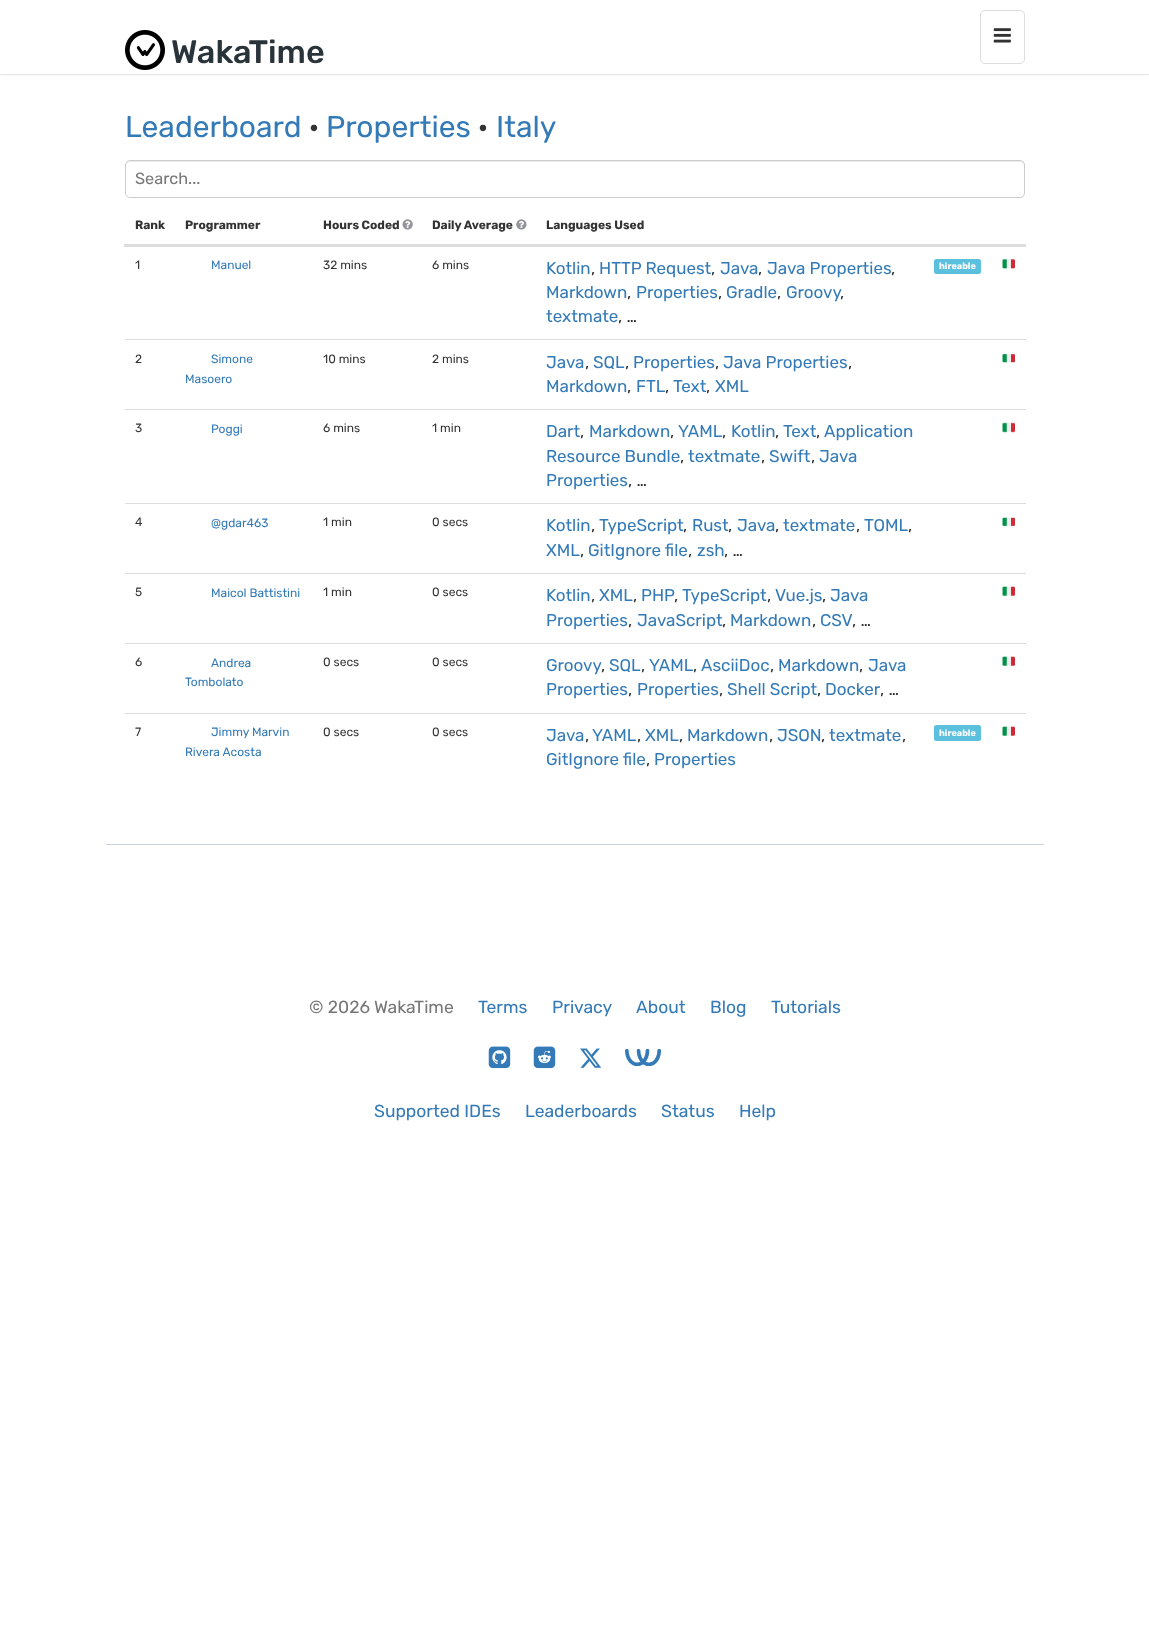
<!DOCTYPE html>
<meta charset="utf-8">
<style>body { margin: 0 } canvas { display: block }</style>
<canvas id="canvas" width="1149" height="1652"></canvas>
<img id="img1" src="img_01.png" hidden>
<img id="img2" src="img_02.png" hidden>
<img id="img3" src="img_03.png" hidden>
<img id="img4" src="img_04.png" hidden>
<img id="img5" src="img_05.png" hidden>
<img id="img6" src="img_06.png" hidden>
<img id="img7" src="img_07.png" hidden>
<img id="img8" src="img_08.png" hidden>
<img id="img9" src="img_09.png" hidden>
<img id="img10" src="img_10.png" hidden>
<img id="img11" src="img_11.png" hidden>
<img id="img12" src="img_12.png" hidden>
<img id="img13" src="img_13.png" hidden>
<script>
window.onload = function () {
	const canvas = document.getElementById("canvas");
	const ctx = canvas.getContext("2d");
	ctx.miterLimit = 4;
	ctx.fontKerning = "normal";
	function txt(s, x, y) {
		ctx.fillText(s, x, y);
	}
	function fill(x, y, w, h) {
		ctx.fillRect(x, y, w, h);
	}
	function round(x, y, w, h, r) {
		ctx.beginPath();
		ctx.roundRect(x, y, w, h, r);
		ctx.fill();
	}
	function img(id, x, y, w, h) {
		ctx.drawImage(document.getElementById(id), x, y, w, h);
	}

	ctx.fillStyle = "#FFFFFF";
	fill(0, 0, 1149, 1652);
	ctx.fillStyle = "rgba(0, 0, 0, 0.3)";
	ctx.filter = "blur(1px)";
	ctx.beginPath();
	ctx.rect(0, 0, 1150, 74);
	ctx.fill();
	ctx.filter = "none";
	ctx.fillStyle = "#FFFFFF";
	fill(0, 0, 1149, 74);
	img("img1", 125, 30, 40, 40);
	ctx.beginPath();
	ctx.roundRect(980.5, 10.5, 44, 53, 4.5);
	ctx.strokeStyle = "#DDDDDD";
	ctx.stroke();
	img("img2", 993, 28, 18, 15);
	ctx.fillStyle = "#ECECEC";
	ctx.beginPath();
	ctx.moveTo(130, 162);
	ctx.lineTo(1020, 162);
	ctx.bezierCurveTo(1022, 162, 1024, 164, 1024, 166);
	ctx.bezierCurveTo(1024, 163, 1023, 161, 1020, 161);
	ctx.lineTo(130, 161);
	ctx.bezierCurveTo(127, 161, 126, 163, 126, 166);
	ctx.bezierCurveTo(126, 164, 128, 162, 130, 162);
	ctx.closePath();
	ctx.fill();
	ctx.beginPath();
	ctx.roundRect(125.5, 160.5, 899, 37, 4.5);
	ctx.strokeStyle = "#CCCCCC";
	ctx.stroke();
	img("img3", 402, 219, 11, 11);
	img("img4", 516, 219, 11, 11);
	ctx.fillStyle = "#DDDDDD";
	fill(124, 244, 902, 3);
	ctx.fillStyle = "#5BC0DE";
	round(934, 259, 47, 15, 2.5);
	img("img5", 1002, 259, 13, 10);
	ctx.fillStyle = "#DDDDDD";
	fill(125, 339, 901, 1);
	img("img6", 1002, 353, 13, 10);
	fill(125, 409, 901, 1);
	img("img7", 1002, 422, 13, 11);
	fill(125, 503, 901, 1);
	img("img8", 1002, 517, 13, 10);
	fill(125, 573, 901, 1);
	img("img9", 1002, 586, 13, 10);
	fill(125, 643, 901, 1);
	img("img9", 1002, 656, 13, 10);
	fill(125, 713, 901, 1);
	img("img9", 1002, 726, 13, 10);
	ctx.fillStyle = "#5BC0DE";
	round(934, 725, 47, 16, 2.5);
	ctx.fillStyle = "#C9D3DC";
	fill(106, 844, 938, 1);
	img("img10", 488, 1046, 23, 23);
	img("img11", 533, 1046, 23, 23);
	img("img12", 580, 1048, 21, 20);
	img("img13", 625, 1049, 36, 17);
	ctx.font = "500 32.5px Rubik";
	ctx.fillStyle = "#29333A";
	txt("WakaTime", 171, 63);
	ctx.font = "30px Rubik";
	ctx.fillStyle = "#337AB7";
	txt("Leaderboard", 125, 137);
	ctx.fillStyle = "#333333";
	txt("·", 309, 137);
	ctx.fillStyle = "#337AB7";
	txt("Properties", 326, 137);
	ctx.fillStyle = "#333333";
	txt("·", 478, 137);
	ctx.fillStyle = "#337AB7";
	txt("Italy", 496, 137);
	ctx.font = "16.25px Rubik";
	ctx.fillStyle = "#777777";
	txt("Search...", 135, 184);
	ctx.font = "bold 12px Rubik";
	ctx.fillStyle = "#333333";
	txt("Rank", 135, 229);
	txt("Programmer", 185, 229);
	txt("Hours Coded", 323, 229);
	txt("Daily Average", 432, 229);
	txt("Languages Used", 546, 229);
	ctx.font = "12px Rubik";
	txt("1", 135, 269);
	ctx.fillStyle = "#337AB7";
	txt("Manuel", 211, 269);
	ctx.fillStyle = "#333333";
	txt("32 mins", 323, 269);
	txt("6 mins", 432, 269);
	ctx.font = "17px Rubik";
	ctx.fillStyle = "#337AB7";
	txt("Kotlin", 546, 274);
	ctx.fillStyle = "#333333";
	txt(",", 591, 274);
	ctx.fillStyle = "#337AB7";
	txt("HTTP Request", 599, 274);
	ctx.fillStyle = "#333333";
	txt(",", 711, 274);
	ctx.fillStyle = "#337AB7";
	txt("Java", 720, 274);
	ctx.fillStyle = "#333333";
	txt(",", 758, 274);
	ctx.fillStyle = "#337AB7";
	txt("Java Properties", 767, 274);
	ctx.fillStyle = "#333333";
	txt(",", 891, 274);
	ctx.fillStyle = "#337AB7";
	txt("Markdown", 546, 298);
	ctx.fillStyle = "#333333";
	txt(",", 627, 298);
	ctx.fillStyle = "#337AB7";
	txt("Properties", 636, 298);
	ctx.fillStyle = "#333333";
	txt(",", 718, 298);
	ctx.fillStyle = "#337AB7";
	txt("Gradle", 726, 298);
	ctx.fillStyle = "#333333";
	txt(",", 777, 298);
	ctx.fillStyle = "#337AB7";
	txt("Groovy", 786, 298);
	ctx.fillStyle = "#333333";
	txt(",", 840, 298);
	ctx.fillStyle = "#337AB7";
	txt("textmate", 546, 322);
	ctx.fillStyle = "#333333";
	txt(", …", 618, 322);
	ctx.font = "bold 9px Rubik";
	ctx.fillStyle = "#FFFFFF";
	txt("hireable", 939, 269);
	ctx.font = "12px Rubik";
	ctx.fillStyle = "#333333";
	txt("2", 135, 363);
	ctx.fillStyle = "#337AB7";
	txt("Simone", 211, 363);
	txt("Masoero", 185, 383);
	ctx.fillStyle = "#333333";
	txt("10 mins", 323, 363);
	txt("2 mins", 432, 363);
	ctx.font = "17px Rubik";
	ctx.fillStyle = "#337AB7";
	txt("Java", 546, 368);
	ctx.fillStyle = "#333333";
	txt(",", 585, 368);
	ctx.fillStyle = "#337AB7";
	txt("SQL", 593, 368);
	ctx.fillStyle = "#333333";
	txt(",", 625, 368);
	ctx.fillStyle = "#337AB7";
	txt("Properties", 633, 368);
	ctx.fillStyle = "#333333";
	txt(",", 715, 368);
	ctx.fillStyle = "#337AB7";
	txt("Java Properties", 723, 368);
	ctx.fillStyle = "#333333";
	txt(",", 848, 368);
	ctx.fillStyle = "#337AB7";
	txt("Markdown", 546, 392);
	ctx.fillStyle = "#333333";
	txt(",", 627, 392);
	ctx.fillStyle = "#337AB7";
	txt("FTL", 636, 392);
	ctx.fillStyle = "#333333";
	txt(",", 665, 392);
	ctx.fillStyle = "#337AB7";
	txt("Text", 673, 392);
	ctx.fillStyle = "#333333";
	txt(",", 706, 392);
	ctx.fillStyle = "#337AB7";
	txt("XML", 715, 392);
	ctx.font = "12px Rubik";
	ctx.fillStyle = "#333333";
	txt("3", 135, 432);
	ctx.fillStyle = "#337AB7";
	txt("Poggi", 211, 433);
	ctx.fillStyle = "#333333";
	txt("6 mins", 323, 432);
	txt("1 min", 432, 432);
	ctx.font = "17px Rubik";
	ctx.fillStyle = "#337AB7";
	txt("Dart", 546, 437);
	ctx.fillStyle = "#333333";
	txt(",", 580, 437);
	ctx.fillStyle = "#337AB7";
	txt("Markdown", 589, 437);
	ctx.fillStyle = "#333333";
	txt(",", 670, 437);
	ctx.fillStyle = "#337AB7";
	txt("YAML", 678, 437);
	ctx.fillStyle = "#333333";
	txt(",", 722, 437);
	ctx.fillStyle = "#337AB7";
	txt("Kotlin", 731, 437);
	ctx.fillStyle = "#333333";
	txt(",", 775, 437);
	ctx.fillStyle = "#337AB7";
	txt("Text", 783, 437);
	ctx.fillStyle = "#333333";
	txt(",", 816, 437);
	ctx.fillStyle = "#337AB7";
	txt("Application", 824, 437);
	txt("Resource Bundle", 546, 462);
	ctx.fillStyle = "#333333";
	txt(",", 680, 462);
	ctx.fillStyle = "#337AB7";
	txt("textmate", 688, 462);
	ctx.fillStyle = "#333333";
	txt(",", 761, 462);
	ctx.fillStyle = "#337AB7";
	txt("Swift", 769, 462);
	ctx.fillStyle = "#333333";
	txt(",", 811, 462);
	ctx.fillStyle = "#337AB7";
	txt("Java", 819, 462);
	txt("Properties", 546, 486);
	ctx.fillStyle = "#333333";
	txt(", …", 628, 486);
	ctx.font = "12px Rubik";
	txt("4", 135, 526);
	ctx.fillStyle = "#337AB7";
	txt("@gdar463", 211, 527);
	ctx.fillStyle = "#333333";
	txt("1 min", 323, 526);
	txt("0 secs", 432, 526);
	ctx.font = "17px Rubik";
	ctx.fillStyle = "#337AB7";
	txt("Kotlin", 546, 531);
	ctx.fillStyle = "#333333";
	txt(",", 591, 531);
	ctx.fillStyle = "#337AB7";
	txt("TypeScript", 599, 531);
	ctx.fillStyle = "#333333";
	txt(",", 683, 531);
	ctx.fillStyle = "#337AB7";
	txt("Rust", 692, 531);
	ctx.fillStyle = "#333333";
	txt(",", 728, 531);
	ctx.fillStyle = "#337AB7";
	txt("Java", 737, 531);
	ctx.fillStyle = "#333333";
	txt(",", 775, 531);
	ctx.fillStyle = "#337AB7";
	txt("textmate", 783, 531);
	ctx.fillStyle = "#333333";
	txt(",", 856, 531);
	ctx.fillStyle = "#337AB7";
	txt("TOML", 864, 531);
	ctx.fillStyle = "#333333";
	txt(",", 908, 531);
	ctx.fillStyle = "#337AB7";
	txt("XML", 546, 556);
	ctx.fillStyle = "#333333";
	txt(",", 580, 556);
	ctx.fillStyle = "#337AB7";
	txt("GitIgnore file", 588, 556);
	ctx.fillStyle = "#333333";
	txt(",", 688, 556);
	ctx.fillStyle = "#337AB7";
	txt("zsh", 697, 556);
	ctx.fillStyle = "#333333";
	txt(", …", 724, 556);
	ctx.font = "12px Rubik";
	txt("5", 135, 596);
	ctx.fillStyle = "#337AB7";
	txt("Maicol Battistini", 211, 597);
	ctx.fillStyle = "#333333";
	txt("1 min", 323, 596);
	txt("0 secs", 432, 596);
	ctx.font = "17px Rubik";
	ctx.fillStyle = "#337AB7";
	txt("Kotlin", 546, 601);
	ctx.fillStyle = "#333333";
	txt(",", 591, 601);
	ctx.fillStyle = "#337AB7";
	txt("XML", 599, 601);
	ctx.fillStyle = "#333333";
	txt(",", 633, 601);
	ctx.fillStyle = "#337AB7";
	txt("PHP", 641, 601);
	ctx.fillStyle = "#333333";
	txt(",", 674, 601);
	ctx.fillStyle = "#337AB7";
	txt("TypeScript", 682, 601);
	ctx.fillStyle = "#333333";
	txt(",", 767, 601);
	ctx.fillStyle = "#337AB7";
	txt("Vue.js", 775, 601);
	ctx.fillStyle = "#333333";
	txt(",", 822, 601);
	ctx.fillStyle = "#337AB7";
	txt("Java", 830, 601);
	txt("Properties", 546, 626);
	ctx.fillStyle = "#333333";
	txt(",", 628, 626);
	ctx.fillStyle = "#337AB7";
	txt("JavaScript", 637, 626);
	ctx.fillStyle = "#333333";
	txt(",", 722, 626);
	ctx.fillStyle = "#337AB7";
	txt("Markdown", 730, 626);
	ctx.fillStyle = "#333333";
	txt(",", 812, 626);
	ctx.fillStyle = "#337AB7";
	txt("CSV", 820, 626);
	ctx.fillStyle = "#333333";
	txt(", …", 852, 626);
	ctx.font = "12px Rubik";
	txt("6", 135, 666);
	ctx.fillStyle = "#337AB7";
	txt("Andrea", 211, 667);
	txt("Tombolato", 185, 686);
	ctx.fillStyle = "#333333";
	txt("0 secs", 323, 666);
	txt("0 secs", 432, 666);
	ctx.font = "17px Rubik";
	ctx.fillStyle = "#337AB7";
	txt("Groovy", 546, 671);
	ctx.fillStyle = "#333333";
	txt(",", 601, 671);
	ctx.fillStyle = "#337AB7";
	txt("SQL", 609, 671);
	ctx.fillStyle = "#333333";
	txt(",", 641, 671);
	ctx.fillStyle = "#337AB7";
	txt("YAML", 649, 671);
	ctx.fillStyle = "#333333";
	txt(",", 693, 671);
	ctx.fillStyle = "#337AB7";
	txt("AsciiDoc", 701, 671);
	ctx.fillStyle = "#333333";
	txt(",", 770, 671);
	ctx.fillStyle = "#337AB7";
	txt("Markdown", 778, 671);
	ctx.fillStyle = "#333333";
	txt(",", 859, 671);
	ctx.fillStyle = "#337AB7";
	txt("Java", 868, 671);
	txt("Properties", 546, 695);
	ctx.fillStyle = "#333333";
	txt(",", 628, 695);
	ctx.fillStyle = "#337AB7";
	txt("Properties", 637, 695);
	ctx.fillStyle = "#333333";
	txt(",", 719, 695);
	ctx.fillStyle = "#337AB7";
	txt("Shell Script", 727, 695);
	ctx.fillStyle = "#333333";
	txt(",", 817, 695);
	ctx.fillStyle = "#337AB7";
	txt("Docker", 825, 695);
	ctx.fillStyle = "#333333";
	txt(", …", 880, 695);
	ctx.font = "12px Rubik";
	txt("7", 135, 736);
	ctx.fillStyle = "#337AB7";
	txt("Jimmy Marvin", 211, 736);
	txt("Rivera Acosta", 185, 756);
	ctx.fillStyle = "#333333";
	txt("0 secs", 323, 736);
	txt("0 secs", 432, 736);
	ctx.font = "17px Rubik";
	ctx.fillStyle = "#337AB7";
	txt("Java", 546, 741);
	ctx.fillStyle = "#333333";
	txt(",", 585, 741);
	ctx.fillStyle = "#337AB7";
	txt("YAML", 592, 741);
	ctx.fillStyle = "#333333";
	txt(",", 637, 741);
	ctx.fillStyle = "#337AB7";
	txt("XML", 645, 741);
	ctx.fillStyle = "#333333";
	txt(",", 679, 741);
	ctx.fillStyle = "#337AB7";
	txt("Markdown", 687, 741);
	ctx.fillStyle = "#333333";
	txt(",", 769, 741);
	ctx.fillStyle = "#337AB7";
	txt("JSON", 777, 741);
	ctx.fillStyle = "#333333";
	txt(",", 821, 741);
	ctx.fillStyle = "#337AB7";
	txt("textmate", 829, 741);
	ctx.fillStyle = "#333333";
	txt(",", 902, 741);
	ctx.fillStyle = "#337AB7";
	txt("GitIgnore file", 546, 765);
	ctx.fillStyle = "#333333";
	txt(",", 646, 765);
	ctx.fillStyle = "#337AB7";
	txt("Properties", 654, 765);
	ctx.font = "bold 9px Rubik";
	ctx.fillStyle = "#FFFFFF";
	txt("hireable", 939, 736);
	ctx.font = "17.5px Rubik";
	ctx.fillStyle = "#777777";
	txt("© 2026 WakaTime", 309, 1013);
	ctx.fillStyle = "#337AB7";
	txt("Terms", 478, 1013);
	txt("Privacy", 552, 1013);
	txt("About", 636, 1013);
	txt("Blog", 710, 1013);
	txt("Tutorials", 771, 1013);
	txt("Supported IDEs", 374, 1117);
	txt("Leaderboards", 525, 1117);
	txt("Status", 661, 1117);
	txt("Help", 739, 1117);
};
</script>
